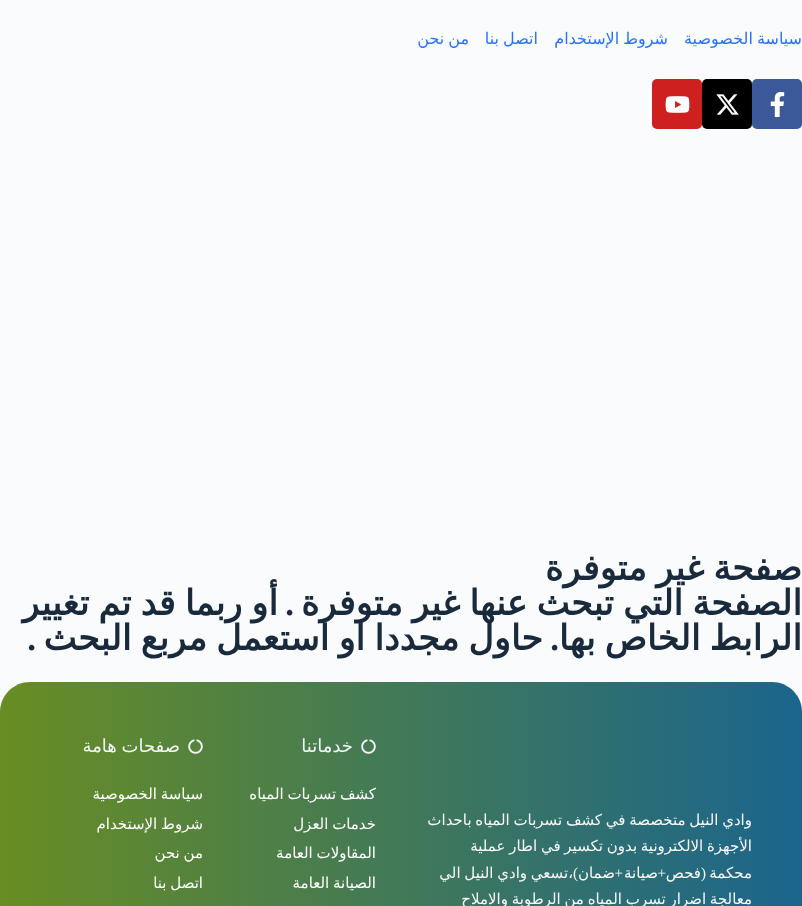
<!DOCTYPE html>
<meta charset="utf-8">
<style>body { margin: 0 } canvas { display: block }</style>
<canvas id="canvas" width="802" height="906"></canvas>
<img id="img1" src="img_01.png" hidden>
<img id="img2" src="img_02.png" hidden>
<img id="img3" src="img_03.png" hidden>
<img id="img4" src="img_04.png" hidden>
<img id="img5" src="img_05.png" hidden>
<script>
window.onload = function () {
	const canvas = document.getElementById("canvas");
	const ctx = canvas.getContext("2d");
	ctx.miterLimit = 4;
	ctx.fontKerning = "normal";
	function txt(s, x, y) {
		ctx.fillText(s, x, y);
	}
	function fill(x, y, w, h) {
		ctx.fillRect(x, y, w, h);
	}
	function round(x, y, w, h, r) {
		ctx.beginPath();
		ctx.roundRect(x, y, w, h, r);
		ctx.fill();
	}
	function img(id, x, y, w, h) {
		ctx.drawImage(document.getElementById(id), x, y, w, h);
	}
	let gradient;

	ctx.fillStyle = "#FAFBFC";
	fill(0, 0, 802, 906);
	ctx.fillStyle = "#3B5998";
	round(752, 79, 50, 50, 5);
	img("img1", 770, 92, 15, 25);
	ctx.fillStyle = "#000000";
	round(702, 79, 50, 50, 5);
	img("img2", 716, 94, 23, 21);
	ctx.fillStyle = "#CD201F";
	round(652, 79, 50, 50, 5);
	img("img3", 665, 96, 25, 17);
	gradient = ctx.createLinearGradient(0, 866, 802, 866);
	gradient.addColorStop(0, "#688D23");
	gradient.addColorStop(1, "#1B658D");
	ctx.fillStyle = gradient;
	ctx.beginPath();
	ctx.moveTo(30, 682);
	ctx.lineTo(772, 682);
	ctx.bezierCurveTo(788.5, 682, 802, 695.5, 802, 712);
	ctx.lineTo(802, 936);
	ctx.lineTo(0, 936);
	ctx.lineTo(0, 712);
	ctx.bezierCurveTo(0, 695.5, 13.5, 682, 30, 682);
	ctx.closePath();
	ctx.fill();
	img("img4", 361, 739, 15, 15);
	img("img5", 188, 739, 15, 15);
	ctx.wordSpacing = "-1px";
	ctx.direction = "rtl";
	ctx.font = "16px DejaVu Sans";
	ctx.fillStyle = "#2872FA";
	txt("سياسة الخصوصية", 802, 44);
	txt("شروط الإستخدام", 668, 44);
	txt("اتصل بنا", 538, 44);
	txt("من نحن", 469, 44);
	ctx.wordSpacing = "-2px";
	ctx.font = "bold 35px DejaVu Sans";
	ctx.fillStyle = "#192A3D";
	txt("صفحة غير متوفرة", 802, 580);
	txt("الصفحة التي تبحث عنها غير متوفرة", 802, 615);
	ctx.wordSpacing = "0px";
	ctx.font = "bold 35px Liberation Serif";
	txt(".", 294, 615);
	ctx.wordSpacing = "-2px";
	ctx.font = "bold 35px DejaVu Sans";
	txt("أو ربما قد تم تغيير", 278, 615);
	txt("الرابط الخاص بها", 802, 650);
	ctx.wordSpacing = "0px";
	ctx.font = "bold 35px Liberation Serif";
	txt(".", 559, 650);
	ctx.wordSpacing = "-2px";
	ctx.font = "bold 35px DejaVu Sans";
	txt("حاول مجددا او استعمل مربع البحث", 543, 650);
	ctx.wordSpacing = "0px";
	ctx.font = "bold 35px Liberation Serif";
	txt(".", 36, 650);
	ctx.wordSpacing = "-1px";
	ctx.font = "15px DejaVu Sans";
	ctx.fillStyle = "#F8F8F8";
	txt("وادي النيل متخصصة في كشف تسربات المياه باحداث", 752, 825);
	txt("الأجهزة الالكترونية بدون تكسير في اطار عملية", 752, 851);
	ctx.wordSpacing = "0px";
	txt("محكمة", 752, 878);
	ctx.font = "15px Liberation Serif";
	txt("(", 706, 878);
	ctx.font = "15px DejaVu Sans";
	txt("فحص", 701, 878);
	ctx.font = "15px Liberation Serif";
	txt("+", 666, 878);
	ctx.font = "15px DejaVu Sans";
	txt("صيانة", 658, 878);
	ctx.font = "15px Liberation Serif";
	txt("+", 623, 878);
	ctx.font = "15px DejaVu Sans";
	txt("ضمان", 615, 878);
	ctx.font = "15px Liberation Serif";
	txt(")", 578, 878);
	ctx.wordSpacing = "-1px";
	ctx.font = "15px DejaVu Sans";
	txt("،تسعي وادي النيل الي", 573, 878);
	txt("معالجة اضرار تسرب المياه من الرطوبة والاملاح", 752, 904);
	ctx.wordSpacing = "0px";
	ctx.font = "18px DejaVu Sans";
	ctx.fillStyle = "#F2F6F8";
	txt("خدماتنا", 353, 752);
	ctx.wordSpacing = "-1px";
	ctx.font = "15px DejaVu Sans";
	ctx.fillStyle = "#FEFFFC";
	txt("كشف تسربات المياه", 376, 799);
	txt("خدمات العزل", 376, 829);
	txt("المقاولات العامة", 376, 858);
	txt("الصيانة العامة", 376, 888);
	ctx.font = "18px DejaVu Sans";
	ctx.fillStyle = "#F2F6F8";
	txt("صفحات هامة", 180, 752);
	ctx.font = "15px DejaVu Sans";
	ctx.fillStyle = "#FEFFFC";
	txt("سياسة الخصوصية", 203, 799);
	txt("شروط الإستخدام", 203, 829);
	txt("من نحن", 203, 858);
	txt("اتصل بنا", 203, 888);
};
</script>
